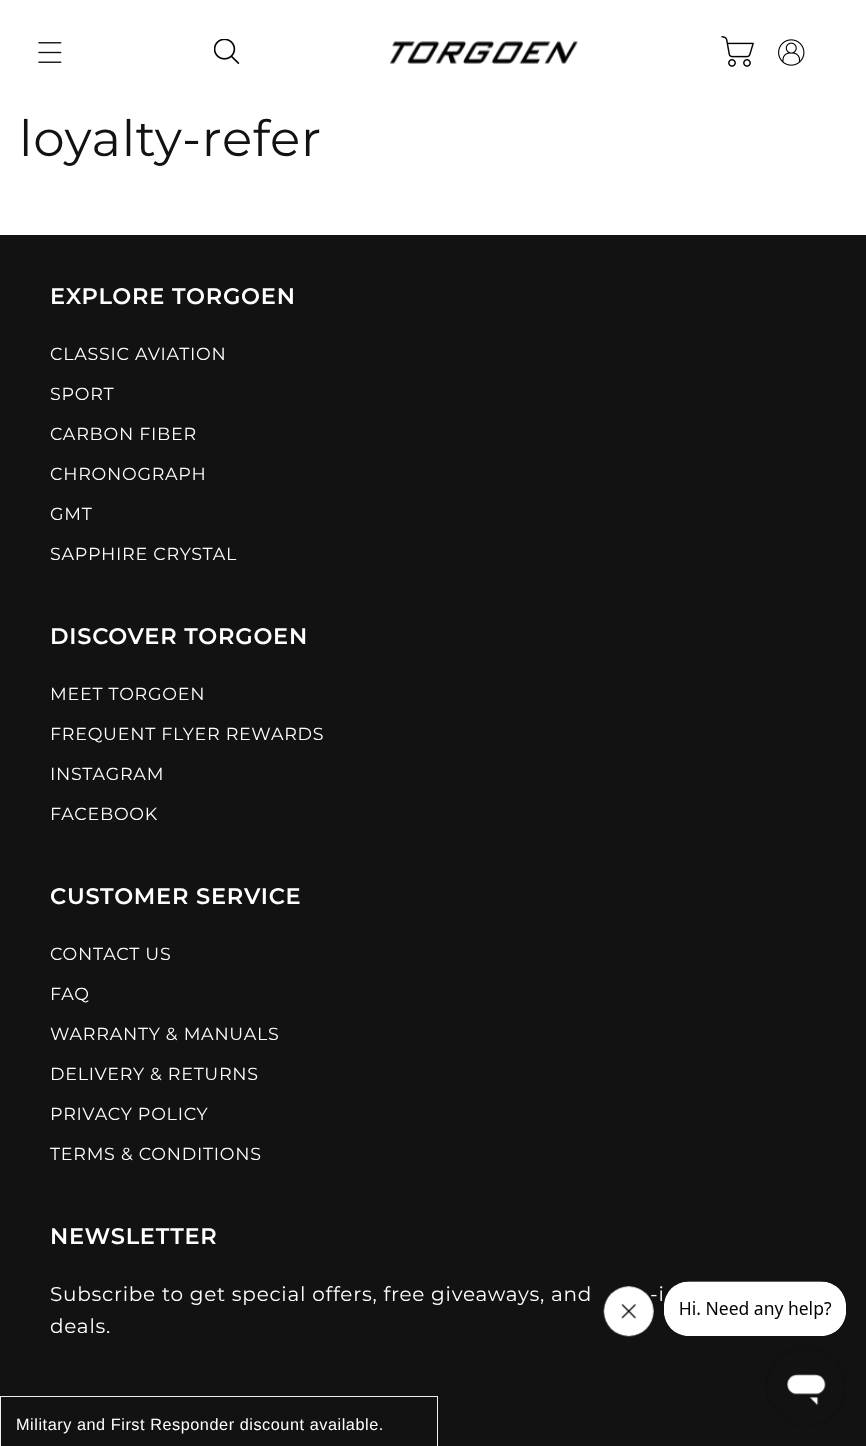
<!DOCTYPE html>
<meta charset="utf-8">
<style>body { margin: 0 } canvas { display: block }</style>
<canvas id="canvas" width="866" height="1446"></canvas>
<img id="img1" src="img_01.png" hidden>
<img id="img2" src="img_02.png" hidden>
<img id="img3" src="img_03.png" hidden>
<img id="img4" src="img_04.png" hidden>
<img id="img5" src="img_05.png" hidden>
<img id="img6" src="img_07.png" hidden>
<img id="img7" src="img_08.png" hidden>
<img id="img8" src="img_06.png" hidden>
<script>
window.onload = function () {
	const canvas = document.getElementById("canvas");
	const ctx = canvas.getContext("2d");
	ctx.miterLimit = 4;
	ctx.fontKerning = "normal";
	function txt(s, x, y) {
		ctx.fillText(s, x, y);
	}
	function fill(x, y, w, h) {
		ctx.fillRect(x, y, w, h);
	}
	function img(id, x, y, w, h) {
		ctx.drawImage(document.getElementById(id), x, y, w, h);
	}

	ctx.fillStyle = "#FFFFFF";
	fill(0, 0, 866, 1446);
	img("img1", 38, 42, 24, 21);
	img("img2", 214, 39, 26, 25);
	img("img3", 390, 41, 188, 23);
	img("img4", 721, 36, 33, 31);
	img("img5", 778, 39, 27, 27);
	ctx.fillStyle = "#121212";
	fill(0, 235, 866, 1211);
	ctx.strokeStyle = "#EEEEEE";
	ctx.strokeRect(0.5, 1396.5, 437, 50);
	img("img6", 664, 1281, 182, 55);
	img("img7", 766, 1346, 80, 80);
	ctx.letterSpacing = "0.75px";
	ctx.font = "50px Montserrat";
	txt("loyalty-refer", 19, 156);
	ctx.font = "600 22.5px Montserrat";
	ctx.fillStyle = "#FFFFFF";
	txt("EXPLORE TORGOEN", 50, 304);
	ctx.font = "17.5px Montserrat";
	txt("CLASSIC AVIATION", 50, 360);
	txt("SPORT", 50, 400);
	txt("CARBON FIBER", 50, 440);
	txt("CHRONOGRAPH", 50, 480);
	txt("GMT", 50, 520);
	txt("SAPPHIRE CRYSTAL", 50, 560);
	ctx.font = "600 22.5px Montserrat";
	txt("DISCOVER TORGOEN", 50, 644);
	ctx.font = "17.5px Montserrat";
	txt("MEET TORGOEN", 50, 700);
	txt("FREQUENT FLYER REWARDS", 50, 740);
	txt("INSTAGRAM", 50, 780);
	txt("FACEBOOK", 50, 820);
	ctx.font = "600 22.5px Montserrat";
	txt("CUSTOMER SERVICE", 50, 904);
	ctx.font = "17.5px Montserrat";
	txt("CONTACT US", 50, 960);
	txt("FAQ", 50, 1000);
	txt("WARRANTY & MANUALS", 50, 1040);
	txt("DELIVERY & RETURNS", 50, 1080);
	txt("PRIVACY POLICY", 50, 1120);
	txt("TERMS & CONDITIONS", 50, 1160);
	ctx.font = "600 22.5px Montserrat";
	txt("NEWSLETTER", 50, 1244);
	ctx.font = "20px Montserrat";
	txt("Subscribe to get special offers, free giveaways, and", 50, 1301);
	txt("-i", 650, 1301);
	txt("deals.", 50, 1333);
	ctx.letterSpacing = "0.55px";
	ctx.font = "16.25px Liberation Sans";
	txt("Military and First Responder discount available.", 16, 1430);
	img("img8", 603, 1286, 51, 51);
};
</script>
